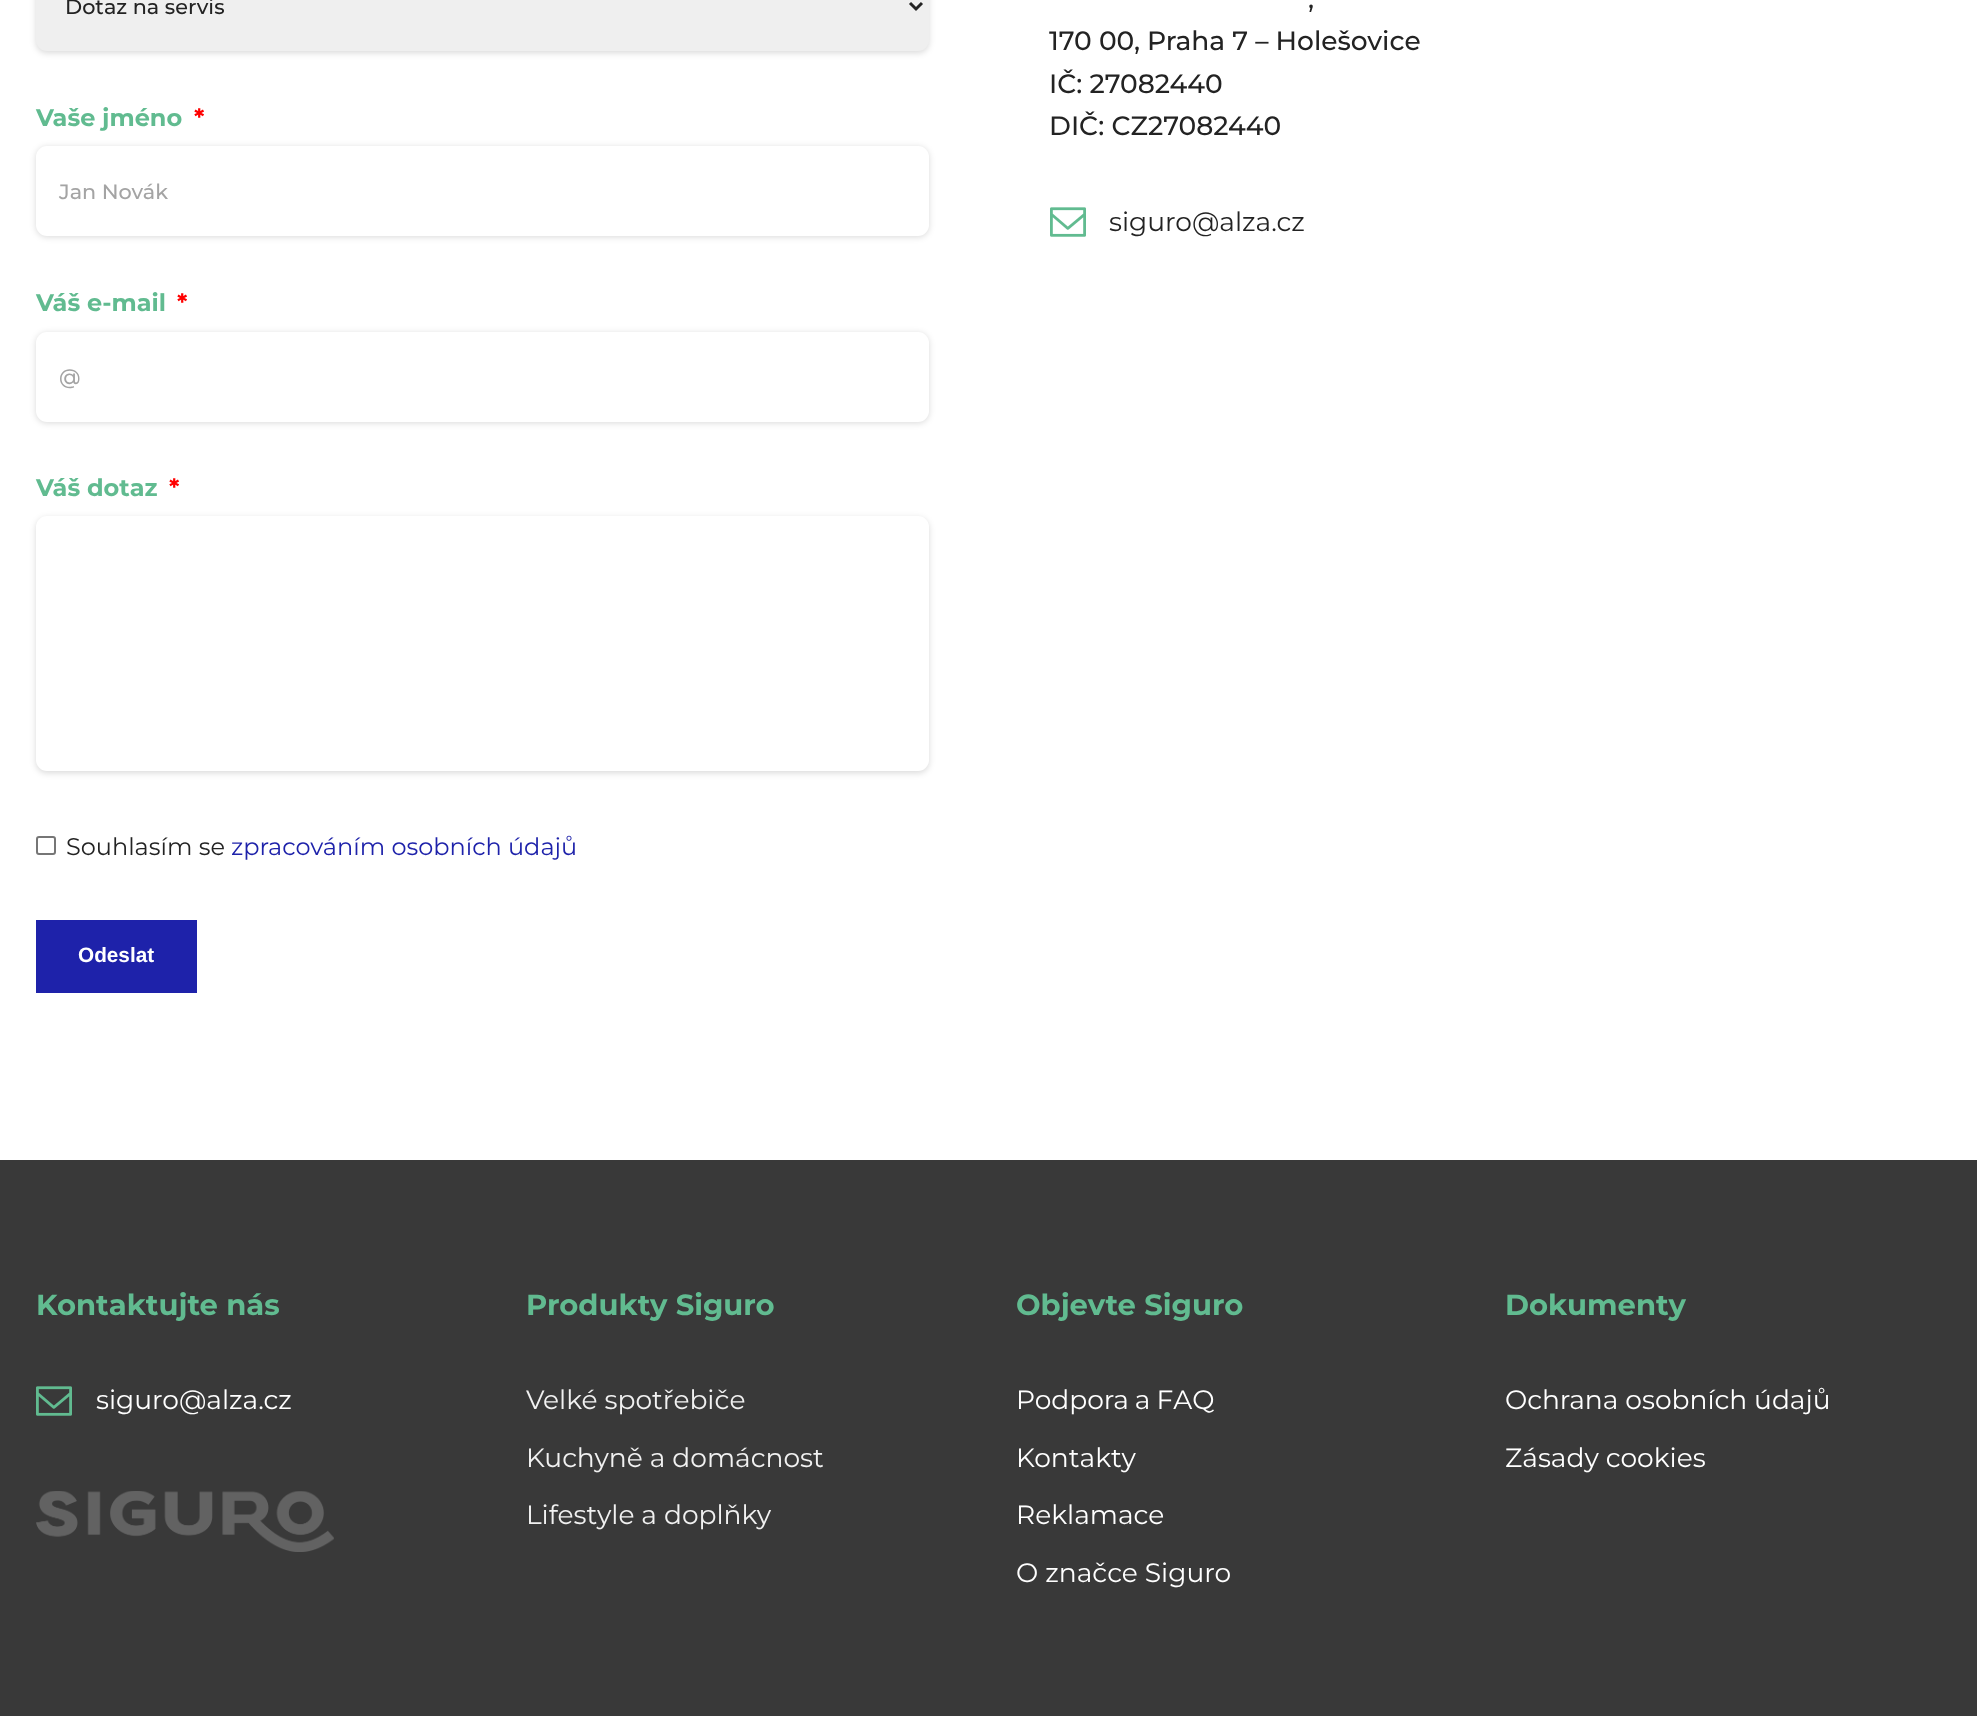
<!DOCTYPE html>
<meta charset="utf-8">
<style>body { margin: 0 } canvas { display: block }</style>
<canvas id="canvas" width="1977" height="1716"></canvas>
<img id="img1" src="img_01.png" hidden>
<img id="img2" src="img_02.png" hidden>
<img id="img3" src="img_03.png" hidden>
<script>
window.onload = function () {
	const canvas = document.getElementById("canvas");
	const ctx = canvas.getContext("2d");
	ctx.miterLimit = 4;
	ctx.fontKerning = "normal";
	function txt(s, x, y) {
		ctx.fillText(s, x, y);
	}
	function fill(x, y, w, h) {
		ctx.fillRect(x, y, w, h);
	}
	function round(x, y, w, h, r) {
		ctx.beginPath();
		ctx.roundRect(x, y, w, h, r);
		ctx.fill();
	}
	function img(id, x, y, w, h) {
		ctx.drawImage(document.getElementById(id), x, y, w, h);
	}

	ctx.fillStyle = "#FFFFFF";
	fill(0, 0, 1977, 1716);
	ctx.fillStyle = "rgba(0, 0, 0, 0.15)";
	ctx.filter = "blur(3px)";
	ctx.beginPath();
	ctx.roundRect(36, -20, 893, 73, 11);
	ctx.fill();
	ctx.filter = "none";
	ctx.fillStyle = "#EFEFEF";
	round(36, -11, 893, 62, 11);
	ctx.beginPath();
	ctx.moveTo(910, 3);
	ctx.lineTo(916, 9);
	ctx.lineTo(922, 3);
	ctx.strokeStyle = "#232323";
	ctx.lineWidth = 3;
	ctx.stroke();
	ctx.fillStyle = "rgba(0, 0, 0, 0.15)";
	ctx.filter = "blur(3px)";
	ctx.beginPath();
	ctx.roundRect(36, 147, 893, 90, 11);
	ctx.fill();
	ctx.filter = "none";
	ctx.fillStyle = "#FFFFFF";
	round(36, 146, 893, 90, 11);
	ctx.fillStyle = "rgba(0, 0, 0, 0.15)";
	ctx.filter = "blur(3px)";
	ctx.beginPath();
	ctx.roundRect(36, 333, 893, 90, 11);
	ctx.fill();
	ctx.filter = "none";
	ctx.fillStyle = "#FFFFFF";
	round(36, 332, 893, 90, 11);
	ctx.fillStyle = "rgba(0, 0, 0, 0.15)";
	ctx.filter = "blur(3px)";
	ctx.beginPath();
	ctx.roundRect(36, 518, 893, 255, 11);
	ctx.fill();
	ctx.filter = "none";
	ctx.fillStyle = "#FFFFFF";
	round(36, 516, 893, 255, 11);
	ctx.beginPath();
	ctx.roundRect(37, 837, 18, 17, 2);
	ctx.strokeStyle = "#767676";
	ctx.lineWidth = 2;
	ctx.stroke();
	ctx.fillStyle = "#1E22AA";
	fill(36, 920, 161, 73);
	img("img1", 1050, 207, 36, 30);
	ctx.fillStyle = "#393939";
	fill(0, 1160, 1977, 556);
	img("img2", 36, 1386, 36, 30);
	img("img3", 36, 1491, 298, 61);
	ctx.font = "500 20.75px Montserrat";
	ctx.fillStyle = "#232323";
	txt("Dotaz na servis", 65, 14);
	ctx.font = "bold 24px Montserrat";
	ctx.fillStyle = "#61BB90";
	txt("Vaše jméno", 36, 126);
	ctx.fillStyle = "#FF0000";
	txt("*", 194, 126);
	ctx.font = "500 20.75px Montserrat";
	ctx.fillStyle = "#A4A4A4";
	txt("Jan Novák", 59, 199);
	ctx.font = "bold 24px Montserrat";
	ctx.fillStyle = "#61BB90";
	txt("Váš e-mail", 36, 311);
	ctx.fillStyle = "#FF0000";
	txt("*", 177, 311);
	ctx.font = "500 20.75px Montserrat";
	ctx.fillStyle = "#A4A4A4";
	txt("@", 59, 384);
	ctx.font = "bold 24px Montserrat";
	ctx.fillStyle = "#61BB90";
	txt("Váš dotaz", 36, 496);
	ctx.fillStyle = "#FF0000";
	txt("*", 169, 496);
	ctx.font = "24px Montserrat";
	ctx.fillStyle = "#232323";
	txt("Souhlasím se", 66, 855);
	ctx.fillStyle = "#1E22AA";
	txt("zpracováním osobních údajů", 231, 855);
	ctx.font = "bold 20.75px Liberation Sans";
	ctx.fillStyle = "#FFFFFF";
	txt("Odeslat", 78, 962);
	ctx.font = "500 26.5px Montserrat";
	ctx.fillStyle = "#232323";
	txt(",", 1308, 8);
	txt("170 00, Praha 7 – Holešovice", 1049, 50);
	txt("IČ: 27082440", 1049, 93);
	txt("DIČ: CZ27082440", 1049, 135);
	ctx.font = "26.5px Montserrat";
	txt("siguro@alza.cz", 1109, 231);
	ctx.font = "bold 29.1px Montserrat";
	ctx.fillStyle = "#61BB90";
	txt("Kontaktujte nás", 36, 1315);
	ctx.font = "26.5px Montserrat";
	ctx.fillStyle = "#FFFFFF";
	txt("siguro@alza.cz", 96, 1409);
	ctx.font = "bold 29.1px Montserrat";
	ctx.fillStyle = "#61BB90";
	txt("Produkty Siguro", 526, 1315);
	ctx.font = "26.5px Montserrat";
	ctx.fillStyle = "#F1F1F1";
	txt("Velké spotřebiče", 526, 1409);
	txt("Kuchyně a domácnost", 526, 1467);
	txt("Lifestyle a doplňky", 526, 1524);
	ctx.font = "bold 29.1px Montserrat";
	ctx.fillStyle = "#61BB90";
	txt("Objevte Siguro", 1016, 1315);
	ctx.wordSpacing = "-1px";
	ctx.font = "26.5px Montserrat";
	ctx.fillStyle = "#FFFFFF";
	txt("Podpora a FAQ", 1016, 1409);
	ctx.wordSpacing = "0px";
	txt("Kontakty", 1016, 1467);
	txt("Reklamace", 1016, 1524);
	txt("O značce Siguro", 1016, 1582);
	ctx.font = "bold 29.1px Montserrat";
	ctx.fillStyle = "#61BB90";
	txt("Dokumenty", 1505, 1315);
	ctx.font = "26.5px Montserrat";
	ctx.fillStyle = "#FFFFFF";
	txt("Ochrana osobních údajů", 1505, 1409);
	txt("Zásady cookies", 1505, 1467);
};
</script>
